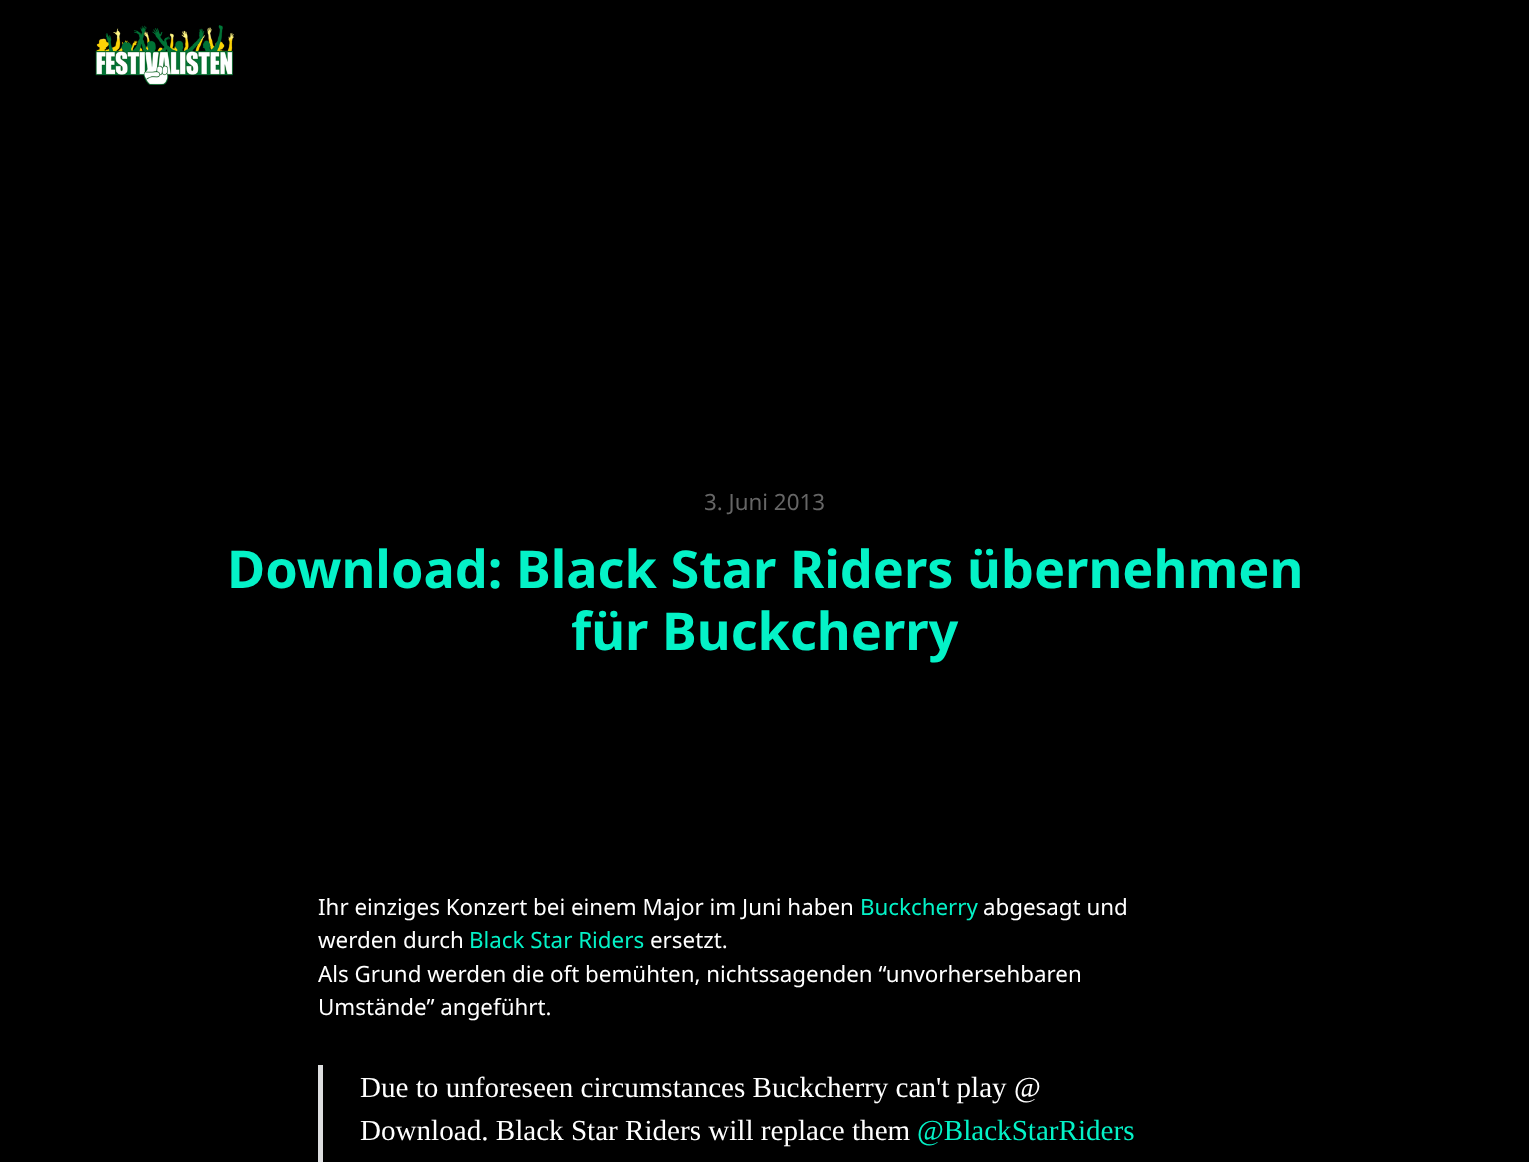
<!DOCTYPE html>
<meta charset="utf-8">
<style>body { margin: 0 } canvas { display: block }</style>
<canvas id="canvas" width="1529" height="1162"></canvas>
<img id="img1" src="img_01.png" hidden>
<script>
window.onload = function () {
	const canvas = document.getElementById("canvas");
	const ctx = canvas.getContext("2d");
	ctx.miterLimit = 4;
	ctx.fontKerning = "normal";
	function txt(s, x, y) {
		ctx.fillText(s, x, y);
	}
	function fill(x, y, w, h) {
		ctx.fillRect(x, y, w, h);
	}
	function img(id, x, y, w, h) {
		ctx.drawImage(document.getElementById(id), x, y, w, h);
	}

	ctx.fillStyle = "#000000";
	fill(0, 0, 1529, 1162);
	img("img1", 95, 25, 139, 60);
	ctx.fillStyle = "#DDDEDF";
	fill(318, 1065, 5, 97);
	ctx.font = "22.35px Noto Sans";
	ctx.fillStyle = "#666666";
	txt("3. Juni 2013", 704, 510);
	ctx.font = "bold 52.2px Noto Sans";
	ctx.fillStyle = "#04F2C7";
	txt("Download: Black Star Riders übernehmen", 227, 588);
	txt("für Buckcherry", 571, 650);
	ctx.font = "22.35px Noto Sans";
	ctx.fillStyle = "#FFFFFF";
	txt("Ihr einziges Konzert bei einem Major im Juni haben", 318, 915);
	ctx.fillStyle = "#04F2C7";
	txt("Buckcherry", 860, 915);
	ctx.fillStyle = "#FFFFFF";
	txt("abgesagt und", 983, 915);
	txt("werden durch", 318, 948);
	ctx.fillStyle = "#04F2C7";
	txt("Black Star Riders", 469, 948);
	ctx.fillStyle = "#FFFFFF";
	txt("ersetzt.", 650, 948);
	txt("Als Grund werden die oft bemühten, nichtssagenden “unvorhersehbaren", 318, 982);
	txt("Umstände” angeführt.", 318, 1015);
	ctx.font = "29.1px Liberation Serif";
	txt("Due to unforeseen circumstances Buckcherry can't play @", 360, 1097);
	txt("Download. Black Star Riders will replace them", 360, 1140);
	ctx.fillStyle = "#04F2C7";
	txt("@BlackStarRiders", 917, 1140);
};
</script>
